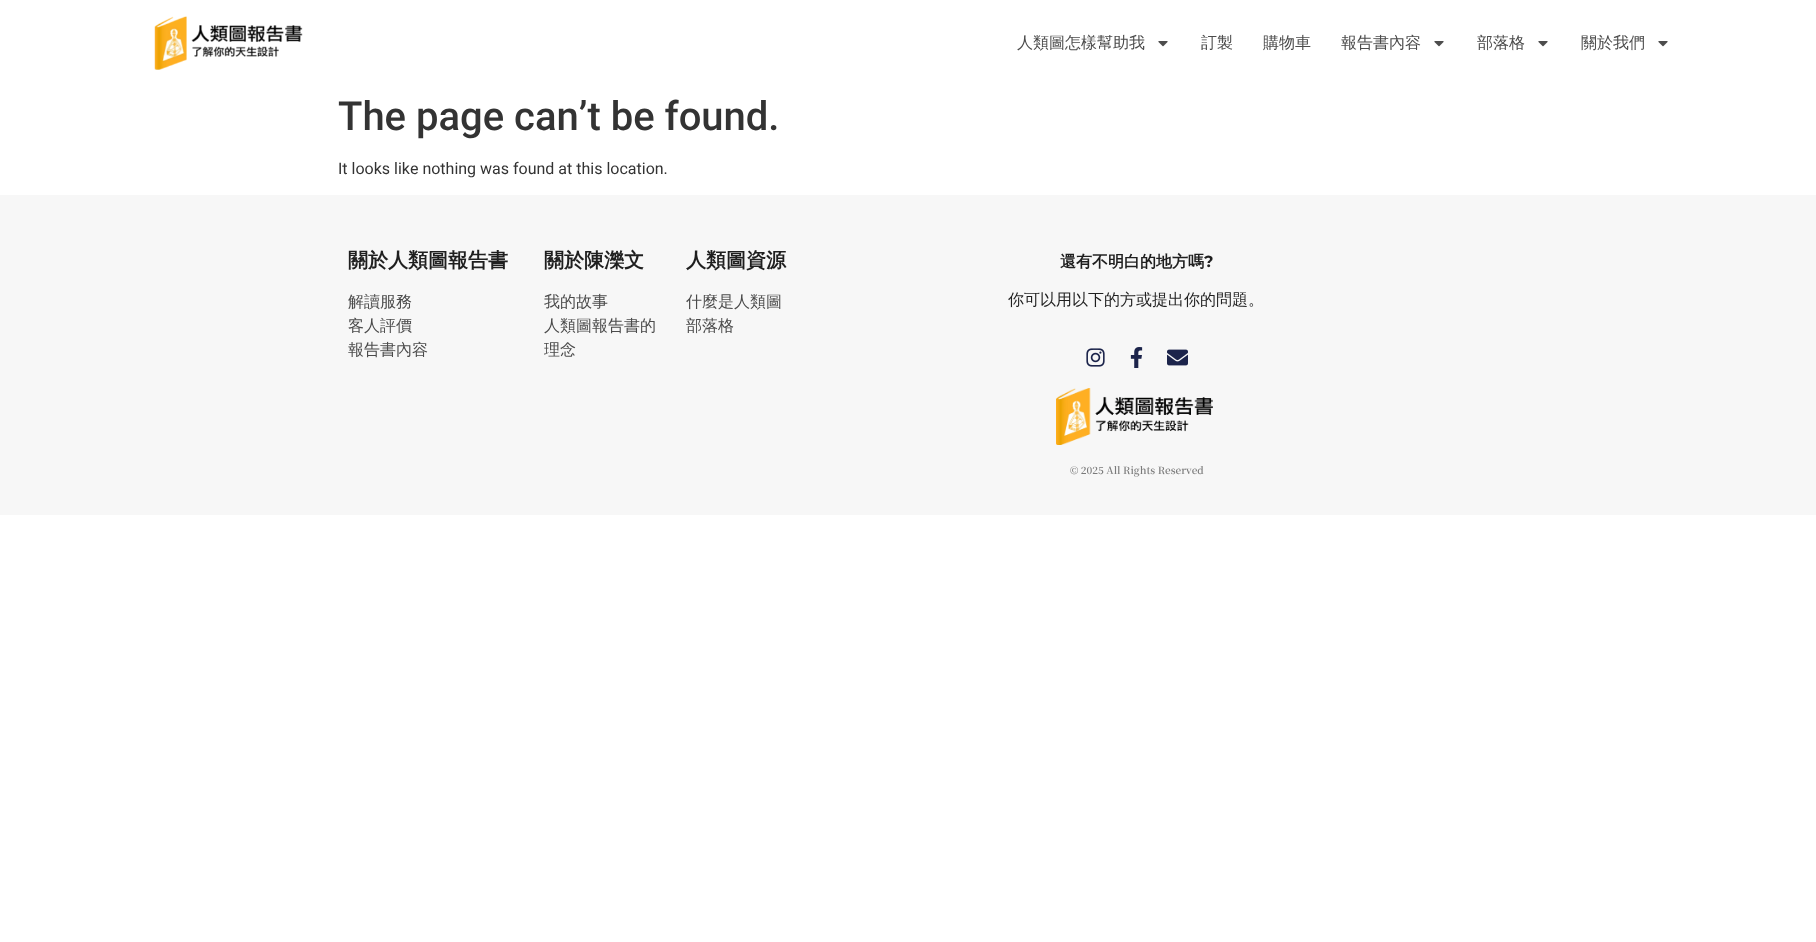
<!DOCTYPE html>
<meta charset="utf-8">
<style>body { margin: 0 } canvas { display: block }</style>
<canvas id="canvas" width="1816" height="942"></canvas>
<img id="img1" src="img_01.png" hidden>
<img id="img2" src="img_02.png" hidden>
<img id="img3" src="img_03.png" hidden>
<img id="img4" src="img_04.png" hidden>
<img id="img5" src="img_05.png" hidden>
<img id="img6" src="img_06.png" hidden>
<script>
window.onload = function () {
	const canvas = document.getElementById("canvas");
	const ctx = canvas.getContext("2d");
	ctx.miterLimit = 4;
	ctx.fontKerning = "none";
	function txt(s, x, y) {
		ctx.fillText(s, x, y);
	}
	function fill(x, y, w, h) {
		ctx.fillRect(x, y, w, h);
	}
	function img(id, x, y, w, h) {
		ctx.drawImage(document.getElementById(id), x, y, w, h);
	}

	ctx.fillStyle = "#FFFFFF";
	fill(0, 0, 1816, 942);
	img("img1", 154, 16, 149, 54);
	img("img2", 1158, 41, 10, 6);
	img("img2", 1434, 41, 10, 6);
	img("img2", 1538, 41, 10, 6);
	img("img2", 1658, 41, 10, 6);
	ctx.fillStyle = "#F7F7F7";
	fill(0, 195, 1816, 320);
	img("img3", 1086, 348, 19, 19);
	img("img4", 1130, 347, 13, 21);
	img("img5", 1167, 349, 21, 17);
	img("img6", 1056, 388, 157, 57);
	ctx.font = "500 16px WenQuanYi Zen Hei";
	ctx.fillStyle = "#4B4B4B";
	txt("人類圖怎樣幫助我", 1017, 48);
	txt("訂製", 1201, 48);
	txt("購物車", 1263, 48);
	txt("報告書內容", 1341, 48);
	txt("部落格", 1477, 48);
	txt("關於我們", 1581, 48);
	ctx.font = "500 40px Roboto";
	ctx.fillStyle = "#333333";
	txt("The page can’t be found.", 338, 130);
	ctx.font = "16px Roboto";
	txt("It looks like nothing was found at this location.", 338, 174);
	ctx.font = "bold 20px WenQuanYi Zen Hei";
	ctx.fillStyle = "#1F1F1F";
	txt("關於人類圖報告書", 348, 267);
	ctx.font = "500 16px WenQuanYi Zen Hei";
	ctx.fillStyle = "#4B4B4B";
	txt("解讀服務", 348, 307);
	txt("客人評價", 348, 331);
	txt("報告書內容", 348, 355);
	ctx.font = "bold 20px WenQuanYi Zen Hei";
	ctx.fillStyle = "#1F1F1F";
	txt("關於陳濼文", 544, 267);
	ctx.font = "500 16px WenQuanYi Zen Hei";
	ctx.fillStyle = "#4B4B4B";
	txt("我的故事", 544, 307);
	txt("人類圖報告書的", 544, 331);
	txt("理念", 544, 355);
	ctx.font = "bold 20px WenQuanYi Zen Hei";
	ctx.fillStyle = "#1F1F1F";
	txt("人類圖資源", 686, 267);
	ctx.font = "500 16px WenQuanYi Zen Hei";
	ctx.fillStyle = "#4B4B4B";
	txt("什麼是人類圖", 686, 307);
	txt("部落格", 686, 331);
	ctx.font = "bold 16px WenQuanYi Zen Hei";
	ctx.fillStyle = "#1F1F1F";
	txt("還有不明白的地方嗎", 1060, 267);
	ctx.font = "bold 16px Montserrat";
	txt("?", 1204, 267);
	ctx.font = "500 16px WenQuanYi Zen Hei";
	txt("你可以用以下的方或提出你的問題。", 1008, 305);
	ctx.font = "600 10px Noto Serif TC";
	ctx.fillStyle = "#7A7A7A";
	txt("© 2025 All Rights Reserved", 1070, 474);
};
</script>
